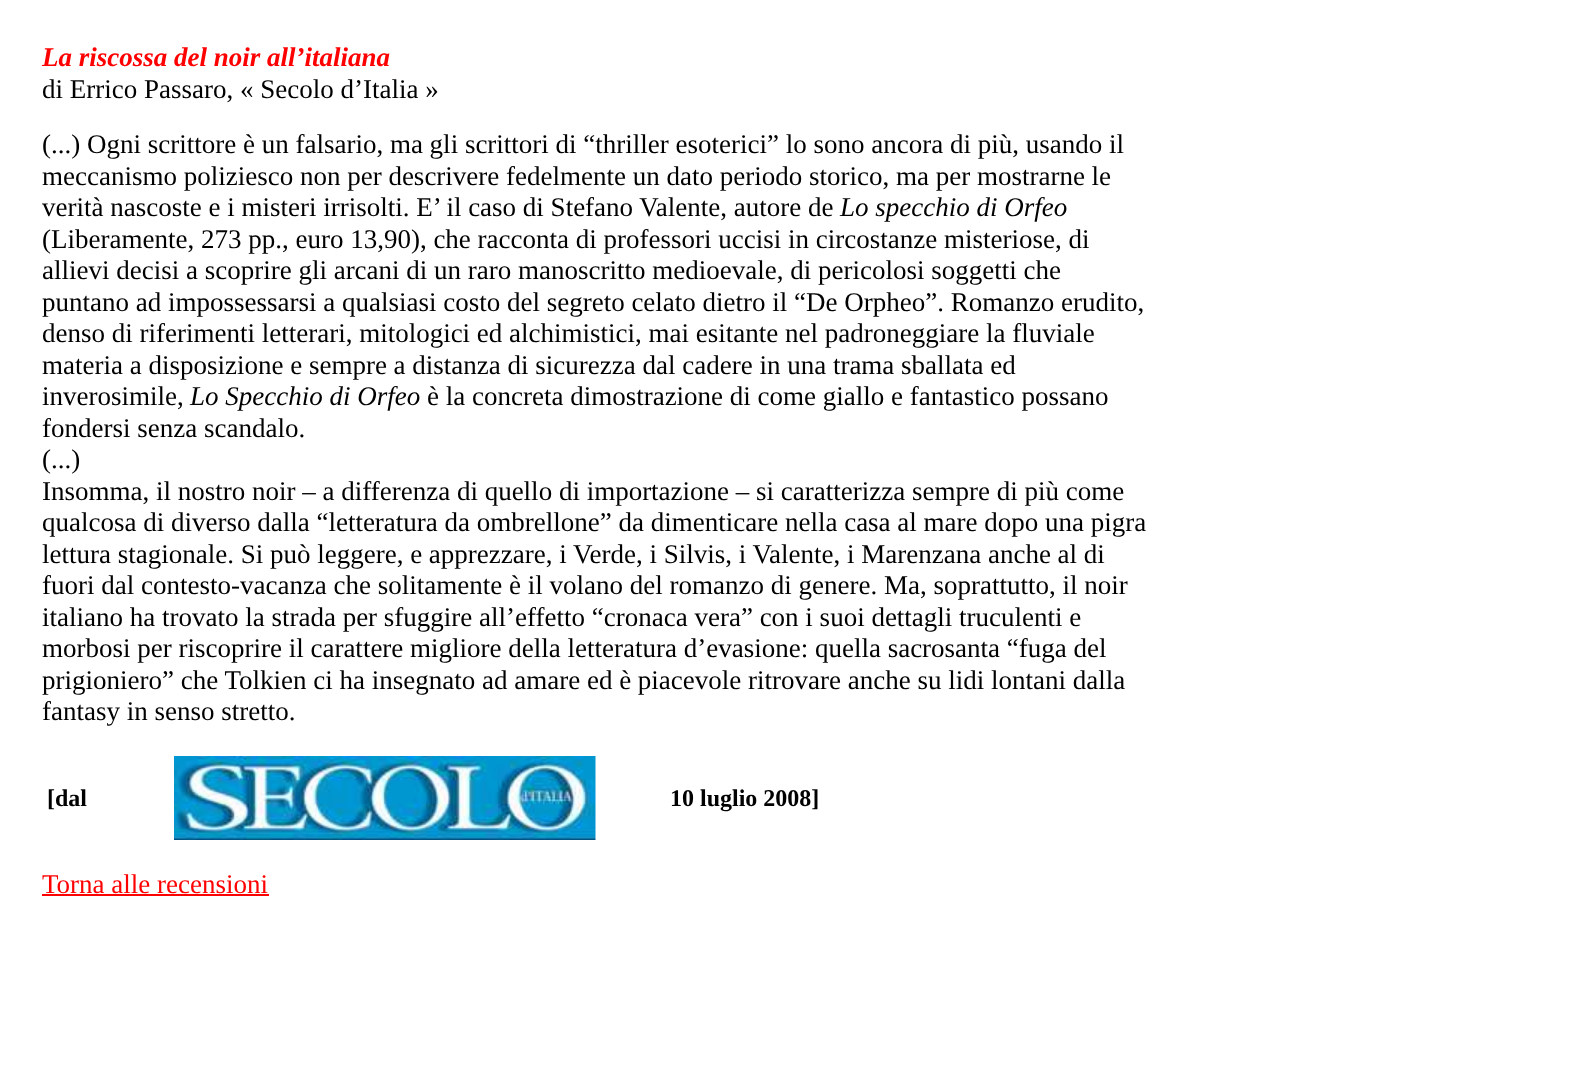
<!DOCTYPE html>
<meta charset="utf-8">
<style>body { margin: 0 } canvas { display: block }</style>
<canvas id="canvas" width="1581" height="1084"></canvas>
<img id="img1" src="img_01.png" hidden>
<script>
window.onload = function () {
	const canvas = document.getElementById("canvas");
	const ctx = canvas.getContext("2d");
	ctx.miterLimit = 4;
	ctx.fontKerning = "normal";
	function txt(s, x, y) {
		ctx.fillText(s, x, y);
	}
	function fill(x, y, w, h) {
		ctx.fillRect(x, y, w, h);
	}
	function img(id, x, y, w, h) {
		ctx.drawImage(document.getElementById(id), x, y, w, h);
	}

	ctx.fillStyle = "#FFFFFF";
	fill(0, 0, 1581, 1084);
	img("img1", 174, 756, 422, 84);
	ctx.fillStyle = "#FF0000";
	fill(42, 894, 227, 2);
	ctx.font = "italic bold 27px Liberation Serif";
	txt("La riscossa del noir all’italiana", 42, 66);
	ctx.font = "27px Liberation Serif";
	ctx.fillStyle = "#000000";
	txt("di Errico Passaro, « Secolo d’Italia »", 42, 98);
	txt("(...) Ogni scrittore è un falsario, ma gli scrittori di “thriller esoterici” lo sono ancora di più, usando il", 42, 153);
	txt("meccanismo poliziesco non per descrivere fedelmente un dato periodo storico, ma per mostrarne le", 42, 185);
	txt("verità nascoste e i misteri irrisolti. E’ il caso di Stefano Valente, autore de", 42, 216);
	ctx.font = "italic 27px Liberation Serif";
	txt("Lo specchio di Orfeo", 840, 216);
	ctx.font = "27px Liberation Serif";
	txt("(Liberamente, 273 pp., euro 13,90), che racconta di professori uccisi in circostanze misteriose, di", 42, 248);
	txt("allievi decisi a scoprire gli arcani di un raro manoscritto medioevale, di pericolosi soggetti che", 42, 279);
	txt("puntano ad impossessarsi a qualsiasi costo del segreto celato dietro il “De Orpheo”. Romanzo erudito,", 42, 311);
	txt("denso di riferimenti letterari, mitologici ed alchimistici, mai esitante nel padroneggiare la fluviale", 42, 342);
	txt("materia a disposizione e sempre a distanza di sicurezza dal cadere in una trama sballata ed", 42, 374);
	txt("inverosimile,", 42, 405);
	ctx.font = "italic 27px Liberation Serif";
	txt("Lo Specchio di Orfeo", 190, 405);
	ctx.font = "27px Liberation Serif";
	txt("è la concreta dimostrazione di come giallo e fantastico possano", 427, 405);
	txt("fondersi senza scandalo.", 42, 437);
	txt("(...)", 42, 468);
	txt("Insomma, il nostro noir – a differenza di quello di importazione – si caratterizza sempre di più come", 42, 500);
	txt("qualcosa di diverso dalla “letteratura da ombrellone” da dimenticare nella casa al mare dopo una pigra", 42, 531);
	txt("lettura stagionale. Si può leggere, e apprezzare, i Verde, i Silvis, i Valente, i Marenzana anche al di", 42, 563);
	txt("fuori dal contesto-vacanza che solitamente è il volano del romanzo di genere. Ma, soprattutto, il noir", 42, 594);
	txt("italiano ha trovato la strada per sfuggire all’effetto “cronaca vera” con i suoi dettagli truculenti e", 42, 626);
	txt("morbosi per riscoprire il carattere migliore della letteratura d’evasione: quella sacrosanta “fuga del", 42, 657);
	txt("prigioniero” che Tolkien ci ha insegnato ad amare ed è piacevole ritrovare anche su lidi lontani dalla", 42, 689);
	txt("fantasy in senso stretto.", 42, 720);
	ctx.font = "bold 24px Liberation Serif";
	txt("[dal", 47, 806);
	txt("10 luglio 2008]", 670, 806);
	ctx.font = "27px Liberation Serif";
	ctx.fillStyle = "#FF0000";
	txt("Torna alle recensioni", 42, 893);
};
</script>
